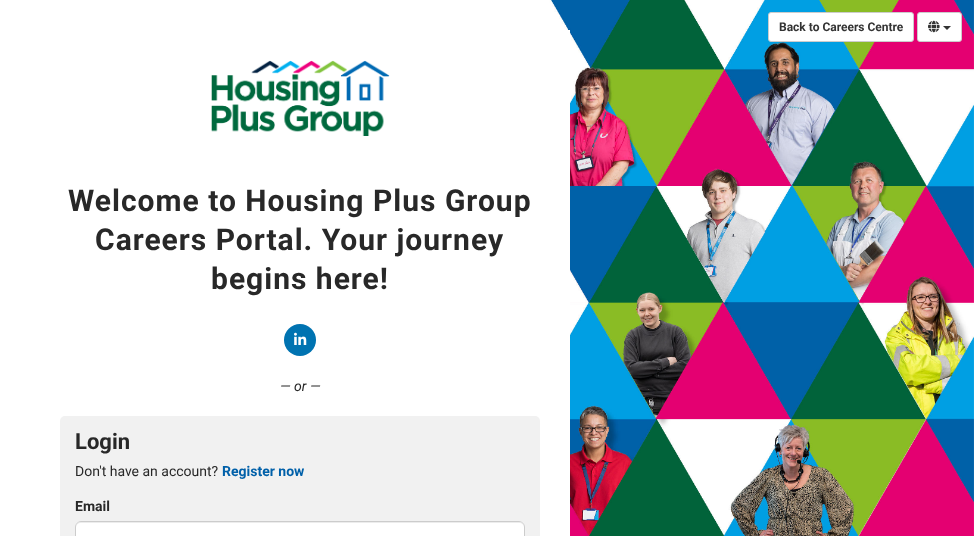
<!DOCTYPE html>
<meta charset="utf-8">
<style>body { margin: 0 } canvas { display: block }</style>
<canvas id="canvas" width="974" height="536"></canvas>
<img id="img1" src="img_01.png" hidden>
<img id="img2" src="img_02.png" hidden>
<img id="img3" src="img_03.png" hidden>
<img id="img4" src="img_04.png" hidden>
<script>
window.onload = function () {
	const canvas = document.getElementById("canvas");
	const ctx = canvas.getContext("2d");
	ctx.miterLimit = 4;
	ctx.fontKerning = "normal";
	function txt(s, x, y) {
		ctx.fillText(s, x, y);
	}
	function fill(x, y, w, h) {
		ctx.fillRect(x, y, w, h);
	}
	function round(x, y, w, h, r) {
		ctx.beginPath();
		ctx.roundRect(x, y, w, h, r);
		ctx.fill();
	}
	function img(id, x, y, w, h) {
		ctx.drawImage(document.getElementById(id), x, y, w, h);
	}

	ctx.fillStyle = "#FFFFFF";
	fill(0, 0, 974, 536);
	img("img1", 452, 0, 522, 536);
	fill(452, 30, 118, 506);
	ctx.beginPath();
	ctx.roundRect(768.5, 12.5, 145, 29, 2.5);
	ctx.fill();
	ctx.strokeStyle = "#CCCCCC";
	ctx.stroke();
	ctx.beginPath();
	ctx.roundRect(917.5, 12.5, 44, 29, 2.5);
	ctx.fill();
	ctx.stroke();
	img("img2", 928, 20, 12, 13);
	ctx.fillStyle = "#333333";
	ctx.beginPath();
	ctx.moveTo(943, 26);
	ctx.lineTo(951, 26);
	ctx.lineTo(947, 30);
	ctx.closePath();
	ctx.fill();
	img("img3", 211, 60, 179, 76);
	ctx.fillStyle = "#0073B1";
	ctx.beginPath();
	ctx.arc(300, 340, 16, 0, Math.PI * 2);
	ctx.fill();
	img("img4", 294, 332, 13, 13);
	ctx.fillStyle = "#F1F1F1";
	round(60, 416, 480, 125, 5);
	ctx.fillStyle = "#FFFFFF";
	round(75, 521, 450, 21, 6);
	ctx.fillStyle = "#ECECEC";
	ctx.beginPath();
	ctx.moveTo(81, 523);
	ctx.lineTo(519, 523);
	ctx.bezierCurveTo(522, 523, 524, 525, 524, 528);
	ctx.bezierCurveTo(524, 525, 522, 522, 519, 522);
	ctx.lineTo(81, 522);
	ctx.bezierCurveTo(78, 522, 76, 525, 76, 528);
	ctx.bezierCurveTo(76, 525, 78, 523, 81, 523);
	ctx.closePath();
	ctx.fill();
	ctx.beginPath();
	ctx.roundRect(75.5, 521.5, 449, 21, 5.5);
	ctx.stroke();
	ctx.font = "bold 12px Roboto";
	ctx.fillStyle = "#333333";
	txt("Back to Careers Centre", 779, 31);
	ctx.letterSpacing = "1px";
	ctx.font = "bold 30px Roboto";
	ctx.fillStyle = "#282828";
	txt("Welcome to Housing Plus Group", 68, 211);
	txt("Careers Portal. Your journey", 95, 250);
	txt("begins here!", 211, 289);
	ctx.letterSpacing = "0px";
	ctx.font = "italic 14px Roboto";
	txt("— or —", 280, 391);
	ctx.font = "bold 22px Roboto";
	txt("Login", 75, 449);
	ctx.font = "14px Roboto";
	txt("Don't have an account?", 75, 476);
	ctx.font = "bold 14px Roboto";
	ctx.fillStyle = "#0060A9";
	txt("Register now", 222, 476);
	ctx.fillStyle = "#282828";
	txt("Email", 75, 511);
};
</script>
